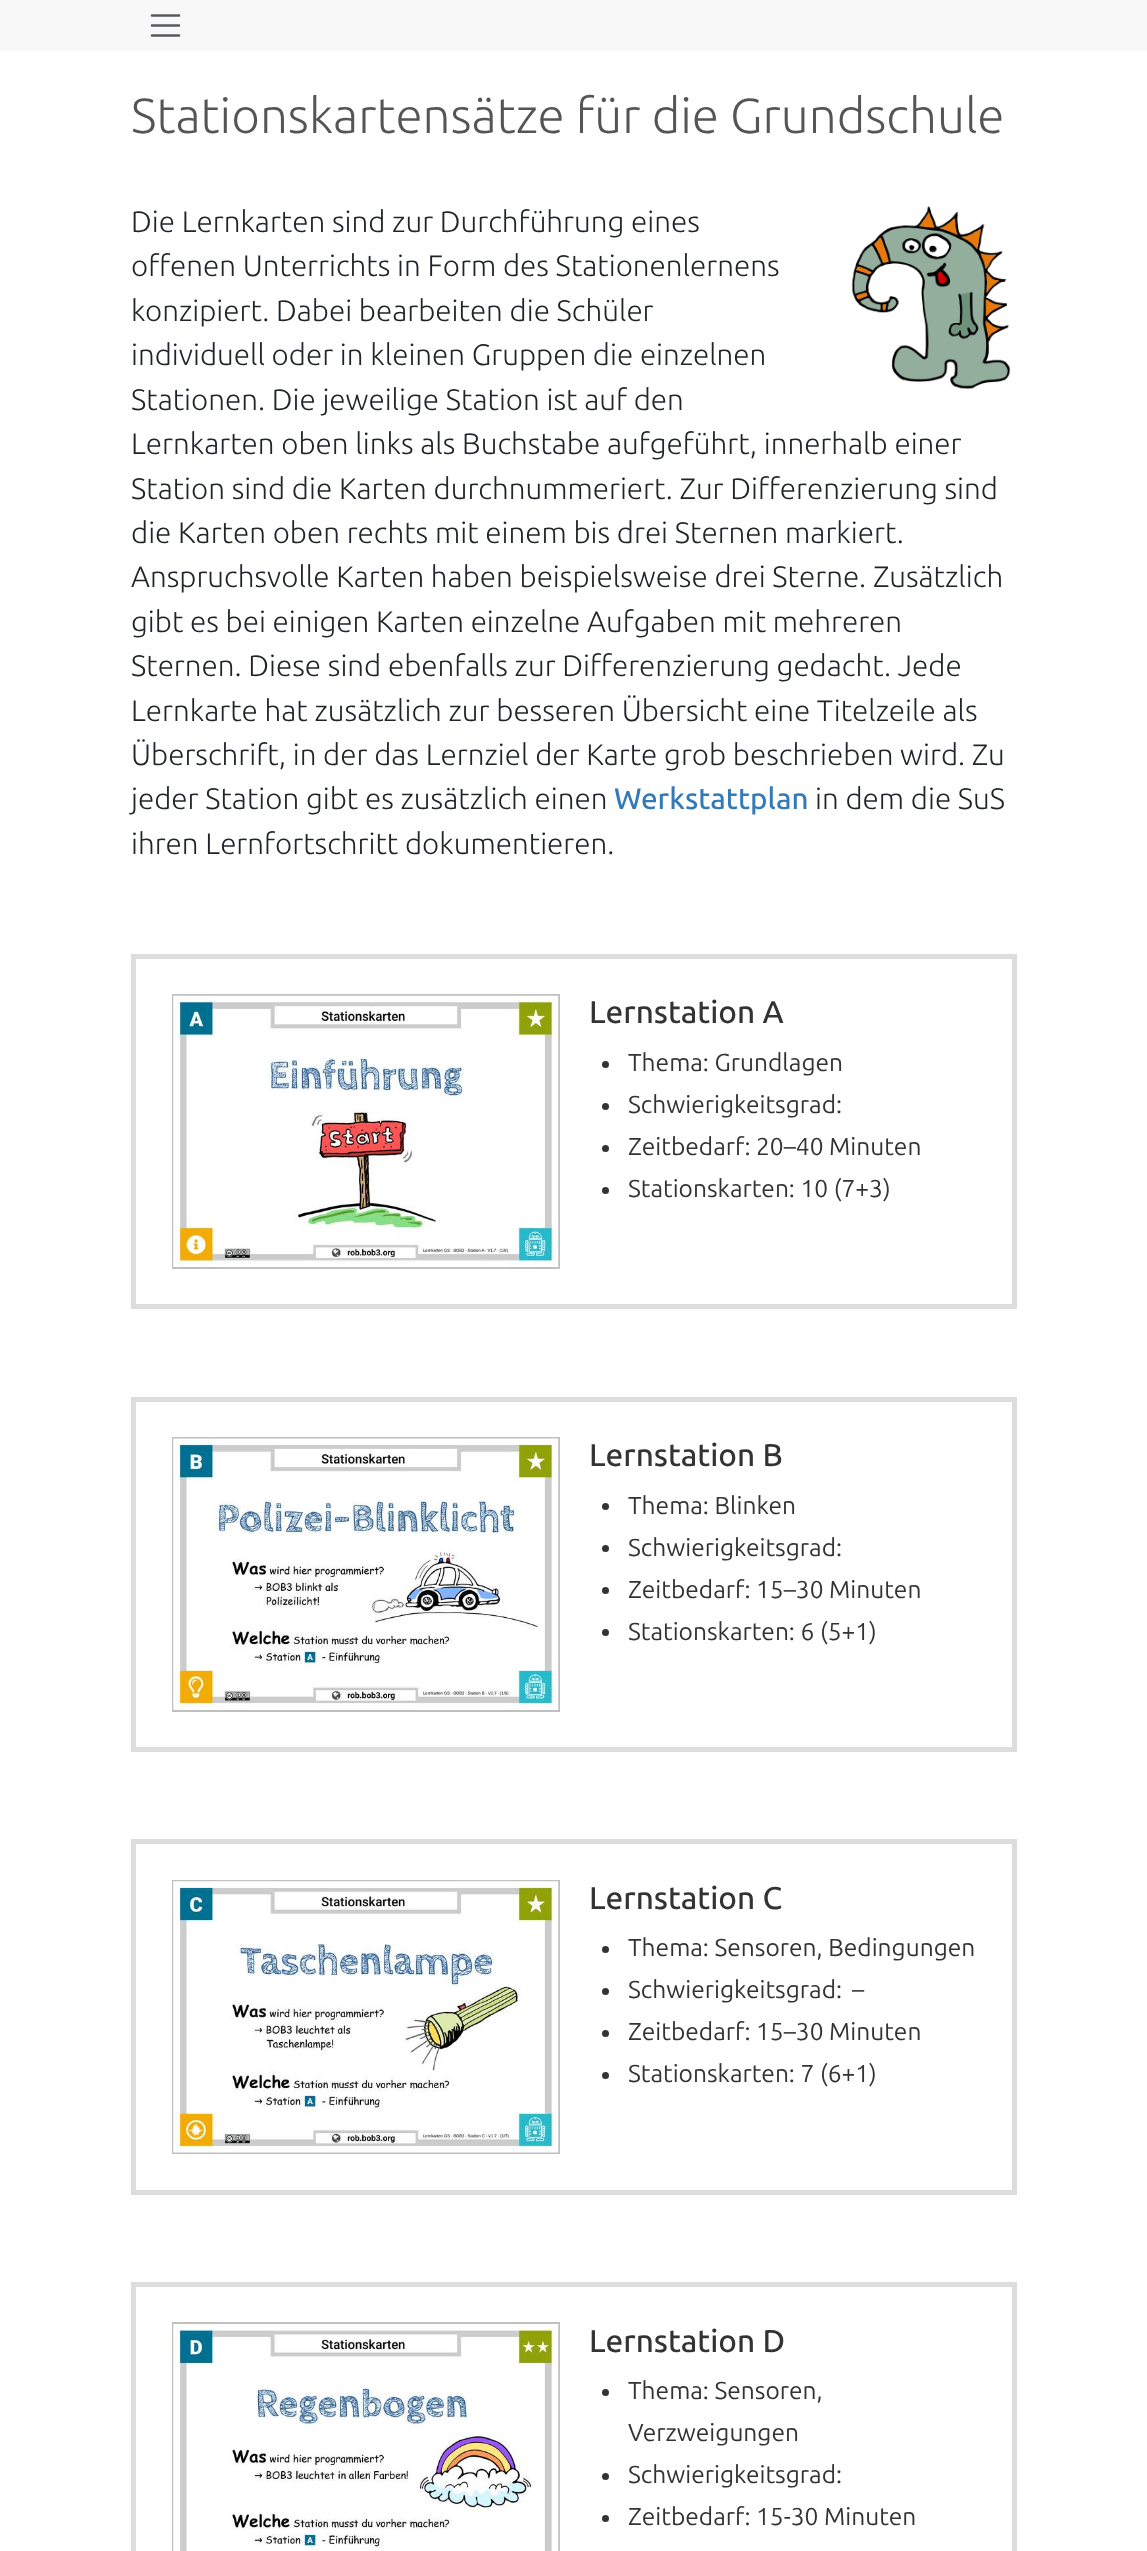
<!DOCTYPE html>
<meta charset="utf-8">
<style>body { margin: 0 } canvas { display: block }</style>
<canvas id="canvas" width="1147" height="2551"></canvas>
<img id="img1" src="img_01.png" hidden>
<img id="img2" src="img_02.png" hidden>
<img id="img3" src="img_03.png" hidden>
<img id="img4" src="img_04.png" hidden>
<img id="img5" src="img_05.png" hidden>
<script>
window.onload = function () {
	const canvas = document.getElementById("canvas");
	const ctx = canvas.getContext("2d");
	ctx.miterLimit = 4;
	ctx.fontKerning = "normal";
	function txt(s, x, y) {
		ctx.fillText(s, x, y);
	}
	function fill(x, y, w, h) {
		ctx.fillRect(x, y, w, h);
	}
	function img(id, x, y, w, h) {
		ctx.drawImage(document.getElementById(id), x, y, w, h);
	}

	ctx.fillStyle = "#FFFFFF";
	fill(0, 0, 1147, 2551);
	ctx.fillStyle = "#F8F8F8";
	fill(0, 0, 1147, 51);
	ctx.beginPath();
	ctx.moveTo(152, 15.5);
	ctx.lineTo(179, 15.5);
	ctx.moveTo(152, 25.5);
	ctx.lineTo(179, 25.5);
	ctx.moveTo(152, 35.5);
	ctx.lineTo(179, 35.5);
	ctx.strokeStyle = "#575A5D";
	ctx.lineWidth = 2.5;
	ctx.lineCap = "round";
	ctx.stroke();
	img("img1", 851, 206, 160, 184);
	ctx.strokeStyle = "#DDDDDD";
	ctx.lineWidth = 5;
	ctx.strokeRect(133.5, 956.5, 881, 350);
	ctx.strokeStyle = "#C0C0C0";
	ctx.lineWidth = 2;
	ctx.strokeRect(173, 995, 386, 273);
	img("img2", 173, 995, 386, 272);
	ctx.fillStyle = "#333333";
	ctx.beginPath();
	ctx.arc(605.5, 1064.5, 3.5, 0, Math.PI * 2);
	ctx.fill();
	ctx.beginPath();
	ctx.arc(605.5, 1106.5, 3.5, 0, Math.PI * 2);
	ctx.fill();
	ctx.beginPath();
	ctx.arc(605.5, 1148.5, 3.5, 0, Math.PI * 2);
	ctx.fill();
	ctx.beginPath();
	ctx.arc(605.5, 1190.5, 3.5, 0, Math.PI * 2);
	ctx.fill();
	ctx.strokeStyle = "#DDDDDD";
	ctx.lineWidth = 5;
	ctx.strokeRect(133.5, 1399.5, 881, 350);
	ctx.strokeStyle = "#C0C0C0";
	ctx.lineWidth = 2;
	ctx.strokeRect(173, 1438, 386, 273);
	img("img3", 173, 1438, 386, 272);
	ctx.beginPath();
	ctx.arc(605.5, 1506.5, 3.5, 0, Math.PI * 2);
	ctx.fill();
	ctx.beginPath();
	ctx.arc(605.5, 1548.5, 3.5, 0, Math.PI * 2);
	ctx.fill();
	ctx.beginPath();
	ctx.arc(605.5, 1590.5, 3.5, 0, Math.PI * 2);
	ctx.fill();
	ctx.beginPath();
	ctx.arc(605.5, 1632.5, 3.5, 0, Math.PI * 2);
	ctx.fill();
	ctx.strokeStyle = "#DDDDDD";
	ctx.lineWidth = 5;
	ctx.strokeRect(133.5, 1841.5, 881, 351);
	ctx.strokeStyle = "#C0C0C0";
	ctx.lineWidth = 2;
	ctx.strokeRect(173, 1881, 386, 272);
	img("img4", 173, 1881, 386, 272);
	ctx.beginPath();
	ctx.arc(605.5, 1949.5, 3.5, 0, Math.PI * 2);
	ctx.fill();
	ctx.beginPath();
	ctx.arc(605.5, 1991.5, 3.5, 0, Math.PI * 2);
	ctx.fill();
	ctx.beginPath();
	ctx.arc(605.5, 2033.5, 3.5, 0, Math.PI * 2);
	ctx.fill();
	ctx.beginPath();
	ctx.arc(605.5, 2075.5, 3.5, 0, Math.PI * 2);
	ctx.fill();
	ctx.strokeStyle = "#DDDDDD";
	ctx.lineWidth = 5;
	ctx.strokeRect(133.5, 2284.5, 881, 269);
	ctx.strokeStyle = "#C0C0C0";
	ctx.lineWidth = 2;
	ctx.strokeRect(173, 2323, 386, 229);
	img("img5", 173, 2324, 386, 227);
	ctx.beginPath();
	ctx.arc(605.5, 2392.5, 3.5, 0, Math.PI * 2);
	ctx.fill();
	ctx.beginPath();
	ctx.arc(605.5, 2476.5, 3.5, 0, Math.PI * 2);
	ctx.fill();
	ctx.beginPath();
	ctx.arc(605.5, 2518.5, 3.5, 0, Math.PI * 2);
	ctx.fill();
	ctx.font = "300 49.4px Ubuntu";
	ctx.fillStyle = "#555555";
	txt("Stationskartensätze für die Grundschule", 131, 133);
	ctx.font = "300 29.6px Ubuntu";
	ctx.fillStyle = "#212529";
	txt("Die Lernkarten sind zur Durchführung eines", 131, 232);
	txt("offenen Unterrichts in Form des Stationenlernens", 131, 276);
	txt("konzipiert. Dabei bearbeiten die Schüler", 131, 321);
	txt("individuell oder in kleinen Gruppen die einzelnen", 131, 365);
	txt("Stationen. Die jeweilige Station ist auf den", 131, 410);
	txt("Lernkarten oben links als Buchstabe aufgeführt, innerhalb einer", 131, 454);
	txt("Station sind die Karten durchnummeriert. Zur Differenzierung sind", 131, 499);
	txt("die Karten oben rechts mit einem bis drei Sternen markiert.", 131, 543);
	txt("Anspruchsvolle Karten haben beispielsweise drei Sterne. Zusätzlich", 131, 587);
	txt("gibt es bei einigen Karten einzelne Aufgaben mit mehreren", 131, 632);
	txt("Sternen. Diese sind ebenfalls zur Differenzierung gedacht. Jede", 131, 676);
	txt("Lernkarte hat zusätzlich zur besseren Übersicht eine Titelzeile als", 131, 721);
	txt("Überschrift, in der das Lernziel der Karte grob beschrieben wird. Zu", 131, 765);
	txt("jeder Station gibt es zusätzlich einen", 131, 809);
	ctx.font = "500 29.6px Ubuntu";
	ctx.fillStyle = "#337AB7";
	txt("Werkstattplan", 614, 809);
	ctx.font = "300 29.6px Ubuntu";
	ctx.fillStyle = "#212529";
	txt("in dem die SuS", 815, 809);
	txt("ihren Lernfortschritt dokumentieren.", 131, 854);
	ctx.font = "500 31.5px Ubuntu";
	ctx.fillStyle = "#333333";
	txt("Lernstation A", 589, 1023);
	ctx.font = "24.5px Ubuntu";
	txt("Thema: Grundlagen", 628, 1071);
	txt("Schwierigkeitsgrad:", 628, 1113);
	txt("Zeitbedarf: 20–40 Minuten", 628, 1155);
	txt("Stationskarten: 10 (7+3)", 628, 1197);
	ctx.font = "500 31.5px Ubuntu";
	txt("Lernstation B", 589, 1466);
	ctx.font = "24.5px Ubuntu";
	txt("Thema: Blinken", 628, 1514);
	txt("Schwierigkeitsgrad:", 628, 1556);
	txt("Zeitbedarf: 15–30 Minuten", 628, 1598);
	txt("Stationskarten: 6 (5+1)", 628, 1640);
	ctx.font = "500 31.5px Ubuntu";
	txt("Lernstation C", 589, 1909);
	ctx.font = "24.5px Ubuntu";
	txt("Thema: Sensoren, Bedingungen", 628, 1956);
	txt("Schwierigkeitsgrad:", 628, 1998);
	txt("–", 852, 1998);
	txt("Zeitbedarf: 15–30 Minuten", 628, 2040);
	txt("Stationskarten: 7 (6+1)", 628, 2082);
	ctx.font = "500 31.5px Ubuntu";
	txt("Lernstation D", 589, 2352);
	ctx.font = "24.5px Ubuntu";
	txt("Thema: Sensoren,", 628, 2399);
	txt("Verzweigungen", 628, 2441);
	txt("Schwierigkeitsgrad:", 628, 2483);
	txt("Zeitbedarf: 15-30 Minuten", 628, 2525);
};
</script>
